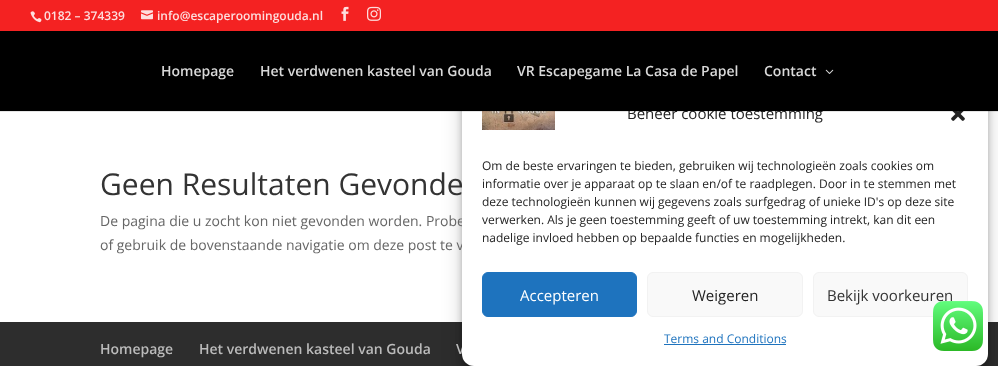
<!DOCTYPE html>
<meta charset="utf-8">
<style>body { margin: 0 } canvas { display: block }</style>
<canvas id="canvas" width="998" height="366"></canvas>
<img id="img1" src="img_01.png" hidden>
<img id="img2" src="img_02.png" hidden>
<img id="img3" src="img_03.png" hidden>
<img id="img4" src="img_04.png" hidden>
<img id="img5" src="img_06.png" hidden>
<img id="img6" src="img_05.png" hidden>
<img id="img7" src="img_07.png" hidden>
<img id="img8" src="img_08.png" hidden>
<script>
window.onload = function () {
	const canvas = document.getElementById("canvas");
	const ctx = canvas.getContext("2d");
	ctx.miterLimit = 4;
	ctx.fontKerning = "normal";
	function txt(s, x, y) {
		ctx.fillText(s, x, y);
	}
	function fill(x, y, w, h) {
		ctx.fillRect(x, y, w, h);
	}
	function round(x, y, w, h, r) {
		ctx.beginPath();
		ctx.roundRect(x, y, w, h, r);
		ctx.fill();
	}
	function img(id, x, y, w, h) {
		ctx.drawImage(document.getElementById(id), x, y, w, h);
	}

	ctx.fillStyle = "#FFFFFF";
	fill(0, 0, 998, 366);
	ctx.fillStyle = "#F42222";
	fill(0, 0, 998, 31);
	img("img1", 30, 11, 12, 12);
	img("img2", 141, 10, 12, 10);
	img("img3", 341, 6, 8, 15);
	img("img4", 367, 6, 14, 15);
	ctx.fillStyle = "#2D2D2D";
	fill(0, 322, 998, 44);
	ctx.fillStyle = "rgba(0, 0, 0, 0.23)";
	ctx.filter = "blur(3px)";
	ctx.beginPath();
	ctx.roundRect(462, 81, 526, 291, 12);
	ctx.fill();
	ctx.filter = "none";
	ctx.fillStyle = "rgba(0, 0, 0, 0.19)";
	ctx.filter = "blur(10px)";
	ctx.beginPath();
	ctx.roundRect(462, 85, 526, 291, 12);
	ctx.fill();
	ctx.filter = "none";
	ctx.font = "600 12px Open Sans";
	ctx.fillStyle = "#FDDEDE";
	txt("0182 – 374339", 44, 20);
	txt("info@escaperoomingouda.nl", 157, 20);
	ctx.font = "30px Open Sans";
	ctx.fillStyle = "#333333";
	txt("Geen Resultaten Gevonde", 100, 195);
	ctx.font = "14px Open Sans";
	ctx.fillStyle = "#666666";
	txt("De pagina die u zocht kon niet gevonden worden. Probe", 100, 226);
	txt("of gebruik de bovenstaande navigatie om deze post te v", 100, 250);
	ctx.font = "600 14px Open Sans";
	ctx.fillStyle = "#BBBBBB";
	txt("Homepage", 100, 354);
	txt("Het verdwenen kasteel van Gouda", 199, 354);
	txt("V", 456, 354);
	ctx.fillStyle = "#FFFFFF";
	round(462, 75, 526, 291, 12);
	img("img5", 482, 111, 73, 19);
	ctx.font = "15px Open Sans";
	ctx.fillStyle = "#222222";
	txt("Beheer cookie toestemming", 627, 119);
	ctx.fillStyle = "#000000";
	fill(0, 31, 998, 80);
	img("img6", 825, 69, 9, 5);
	ctx.font = "600 14px Open Sans";
	ctx.fillStyle = "#D9D9D9";
	txt("Contact", 764, 76);
	txt("VR Escapegame La Casa de Papel", 517, 76);
	txt("Het verdwenen kasteel van Gouda", 260, 76);
	txt("Homepage", 161, 76);
	img("img7", 951, 111, 14, 10);
	ctx.fillStyle = "rgba(0, 0, 0, 0.1)";
	fill(0, 111, 998, 1);
	ctx.font = "12px Open Sans";
	ctx.fillStyle = "#222222";
	txt("Om de beste ervaringen te bieden, gebruiken wij technologieën zoals cookies om", 482, 170);
	txt("informatie over je apparaat op te slaan en/of te raadplegen. Door in te stemmen met", 482, 188);
	txt("deze technologieën kunnen wij gegevens zoals surfgedrag of unieke ID's op deze site", 482, 206);
	txt("verwerken. Als je geen toestemming geeft of uw toestemming intrekt, kan dit een", 482, 224);
	txt("nadelige invloed hebben op bepaalde functies en mogelijkheden.", 482, 242);
	ctx.fillStyle = "#1E73BE";
	ctx.beginPath();
	ctx.roundRect(482.5, 272.5, 154, 44, 5.5);
	ctx.fill();
	ctx.strokeStyle = "#1E73BE";
	ctx.stroke();
	ctx.font = "15px Open Sans";
	ctx.fillStyle = "#FFFFFF";
	txt("Accepteren", 520, 301);
	ctx.fillStyle = "#F9F9F9";
	ctx.beginPath();
	ctx.roundRect(647.5, 272.5, 155, 44, 5.5);
	ctx.fill();
	ctx.strokeStyle = "#F2F2F2";
	ctx.stroke();
	ctx.fillStyle = "#222222";
	txt("Weigeren", 692, 301);
	ctx.fillStyle = "#F9F9F9";
	ctx.beginPath();
	ctx.roundRect(813.5, 272.5, 154, 44, 5.5);
	ctx.fill();
	ctx.stroke();
	ctx.fillStyle = "#333333";
	txt("Bekijk voorkeuren", 827, 301);
	ctx.font = "12px Open Sans";
	ctx.fillStyle = "#1E73BE";
	txt("Terms and Conditions", 664, 343);
	fill(664, 344, 122, 1);
	img("img8", 933, 301, 50, 50);
};
</script>
